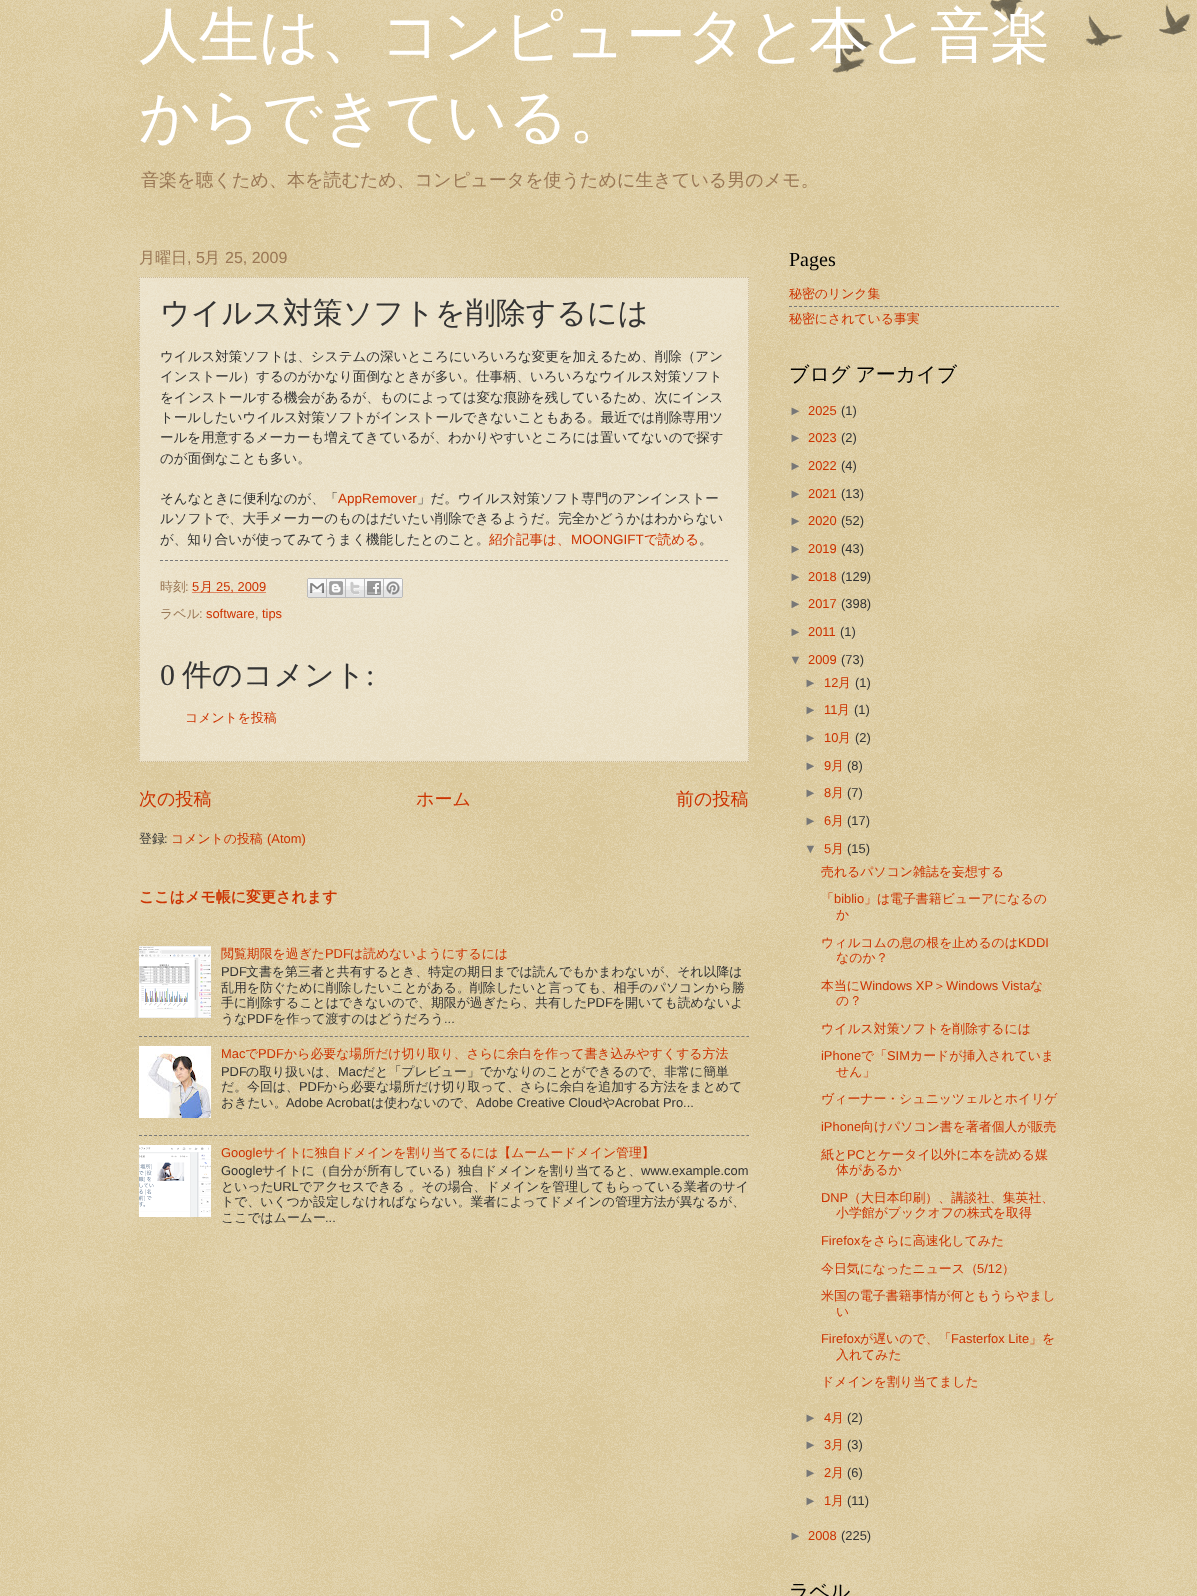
<!DOCTYPE html>
<meta charset="utf-8">
<style>body { margin: 0 } canvas { display: block }</style>
<canvas id="canvas" width="1197" height="1596"></canvas>
<img id="img1" src="img_01.png" hidden>
<img id="img2" src="img_02.png" hidden>
<img id="img3" src="img_03.png" hidden>
<img id="img4" src="img_04.png" hidden>
<img id="img5" src="img_05.png" hidden>
<img id="img6" src="img_06.png" hidden>
<img id="img7" src="img_07.png" hidden>
<img id="img8" src="img_08.png" hidden>
<img id="img9" src="img_09.png" hidden>
<img id="img10" src="img_10.png" hidden>
<script>
window.onload = function () {
	const canvas = document.getElementById("canvas");
	const ctx = canvas.getContext("2d");
	ctx.miterLimit = 4;
	ctx.fontKerning = "normal";
	function txt(s, x, y) {
		ctx.fillText(s, x, y);
	}
	function fill(x, y, w, h) {
		ctx.fillRect(x, y, w, h);
	}
	function img(id, x, y, w, h) {
		ctx.drawImage(document.getElementById(id), x, y, w, h);
	}

	ctx.fillStyle = "#C0A154";
	fill(0, 0, 1197, 1596);
	img("img1", 0, 0, 1197, 1596);
	img("img2", 832, 0, 359, 73);
	ctx.fillStyle = "rgba(255, 255, 255, 0.4)";
	fill(139, 277, 610, 485);
	ctx.beginPath();
	ctx.moveTo(139, 277.5);
	ctx.lineTo(749, 277.5);
	ctx.strokeStyle = "#CCBB99";
	ctx.setLineDash([1, 1]);
	ctx.stroke();
	ctx.beginPath();
	ctx.moveTo(748.5, 277);
	ctx.lineTo(748.5, 762);
	ctx.stroke();
	ctx.beginPath();
	ctx.moveTo(139, 761.5);
	ctx.lineTo(749, 761.5);
	ctx.stroke();
	ctx.beginPath();
	ctx.moveTo(139.5, 277);
	ctx.lineTo(139.5, 762);
	ctx.stroke();
	ctx.beginPath();
	ctx.moveTo(160, 560.5);
	ctx.lineTo(728, 560.5);
	ctx.strokeStyle = "#777777";
	ctx.setLineDash([3, 2]);
	ctx.stroke();
	ctx.beginPath();
	ctx.moveTo(192.5, 592.5);
	ctx.lineTo(266, 592.5);
	ctx.strokeStyle = "#CC3300";
	ctx.setLineDash([1, 1]);
	ctx.stroke();
	img("img3", 307, 578, 20, 20);
	img("img4", 327, 578, 19, 20);
	img("img5", 346, 578, 19, 20);
	img("img6", 365, 578, 19, 20);
	img("img7", 384, 578, 19, 20);
	img("img8", 139, 946, 72, 72);
	ctx.beginPath();
	ctx.moveTo(139, 1036.5);
	ctx.lineTo(749, 1036.5);
	ctx.strokeStyle = "#777777";
	ctx.setLineDash([3, 2.02]);
	ctx.stroke();
	img("img9", 139, 1046, 72, 72);
	ctx.beginPath();
	ctx.moveTo(139, 1135.5);
	ctx.lineTo(749, 1135.5);
	ctx.stroke();
	img("img10", 139, 1145, 72, 72);
	ctx.beginPath();
	ctx.moveTo(789, 306.5);
	ctx.lineTo(1059, 306.5);
	ctx.setLineDash([3, 2.04]);
	ctx.stroke();
	ctx.font = "500 60px WenQuanYi Zen Hei";
	ctx.fillStyle = "#FFFFFF";
	txt("人生は、コンピュータと本と音楽", 139, 56);
	txt("からできている。", 139, 137);
	ctx.font = "500 18.05px WenQuanYi Zen Hei";
	ctx.fillStyle = "#997755";
	txt("音楽を聴くため、本を読むため、コンピュータを使うために生きている男のメモ。", 141, 186);
	ctx.font = "500 16px WenQuanYi Zen Hei";
	txt("月曜日", 139, 263);
	ctx.font = "16px Liberation Sans";
	txt(", 5", 187, 263);
	ctx.font = "500 16px WenQuanYi Zen Hei";
	txt("月", 204, 263);
	ctx.font = "16px Liberation Sans";
	txt("25, 2009", 225, 263);
	ctx.font = "500 30px WenQuanYi Zen Hei";
	ctx.fillStyle = "#333333";
	txt("ウイルス対策ソフトを削除するには", 160, 323);
	ctx.font = "500 13.5px WenQuanYi Zen Hei";
	txt("ウイルス対策ソフトは、システムの深いところにいろいろな変更を加えるため、削除（アン", 160, 361);
	txt("インストール）するのがかなり面倒なときが多い。仕事柄、いろいろなウイルス対策ソフト", 160, 381);
	txt("をインストールする機会があるが、ものによっては変な痕跡を残しているため、次にインス", 160, 402);
	txt("トールしたいウイルス対策ソフトがインストールできないこともある。最近では削除専用ツ", 160, 422);
	txt("ールを用意するメーカーも増えてきているが、わかりやすいところには置いてないので探す", 160, 442);
	txt("のが面倒なことも多い。", 160, 463);
	txt("そんなときに便利なのが、「", 160, 503);
	ctx.font = "13.5px Liberation Sans";
	ctx.fillStyle = "#CC3300";
	txt("AppRemover", 338, 503);
	ctx.font = "500 13.5px WenQuanYi Zen Hei";
	ctx.fillStyle = "#333333";
	txt("」だ。ウイルス対策ソフト専門のアンインストー", 417, 503);
	txt("ルソフトで、大手メーカーのものはだいたい削除できるようだ。完全かどうかはわからない", 160, 523);
	txt("が、知り合いが使ってみてうまく機能したとのこと。", 160, 544);
	ctx.fillStyle = "#CC3300";
	txt("紹介記事は、", 489, 544);
	ctx.font = "13.5px Liberation Sans";
	txt("MOONGIFT", 571, 544);
	ctx.font = "500 13.5px WenQuanYi Zen Hei";
	txt("で読める", 644, 544);
	ctx.fillStyle = "#333333";
	txt("。", 699, 544);
	ctx.font = "500 12.9px WenQuanYi Zen Hei";
	ctx.fillStyle = "#997755";
	txt("時刻", 160, 591);
	ctx.font = "12.9px Liberation Sans";
	txt(":", 185, 591);
	ctx.fillStyle = "#CC3300";
	txt("5", 192, 591);
	ctx.font = "500 12.9px WenQuanYi Zen Hei";
	txt("月", 200, 591);
	ctx.font = "12.9px Liberation Sans";
	txt("25, 2009", 216, 591);
	ctx.font = "500 12.9px WenQuanYi Zen Hei";
	ctx.fillStyle = "#997755";
	txt("ラベル", 160, 618);
	ctx.font = "12.9px Liberation Sans";
	txt(":", 199, 618);
	ctx.fillStyle = "#CC3300";
	txt("software", 206, 618);
	ctx.fillStyle = "#997755";
	txt(",", 255, 618);
	ctx.fillStyle = "#CC3300";
	txt("tips", 262, 618);
	ctx.font = "30px Liberation Serif";
	ctx.fillStyle = "#333333";
	txt("0", 160, 685);
	ctx.font = "500 30px WenQuanYi Zen Hei";
	txt("件のコメント", 182, 685);
	ctx.font = "30px Liberation Serif";
	txt(":", 366, 685);
	ctx.font = "500 12.9px WenQuanYi Zen Hei";
	ctx.fillStyle = "#CC3300";
	txt("コメントを投稿", 185, 722);
	ctx.font = "500 18.05px WenQuanYi Zen Hei";
	txt("次の投稿", 139, 805);
	txt("ホーム", 416, 805);
	txt("前の投稿", 676, 805);
	ctx.font = "500 12.9px WenQuanYi Zen Hei";
	ctx.fillStyle = "#333333";
	txt("登録", 139, 843);
	ctx.font = "12.9px Liberation Sans";
	txt(":", 164, 843);
	ctx.font = "500 12.9px WenQuanYi Zen Hei";
	ctx.fillStyle = "#CC3300";
	txt("コメントの投稿", 171, 843);
	ctx.font = "12.9px Liberation Sans";
	txt("(Atom)", 267, 843);
	ctx.font = "bold 15px WenQuanYi Zen Hei";
	txt("ここはメモ帳に変更されます", 139, 902);
	ctx.font = "500 12.9px WenQuanYi Zen Hei";
	txt("閲覧期限を過ぎた", 221, 958);
	ctx.font = "12.9px Liberation Sans";
	txt("PDF", 325, 958);
	ctx.font = "500 12.9px WenQuanYi Zen Hei";
	txt("は読めないようにするには", 350, 958);
	ctx.font = "12.9px Liberation Sans";
	ctx.fillStyle = "#333333";
	txt("PDF", 221, 976);
	ctx.font = "500 12.9px WenQuanYi Zen Hei";
	txt("文書を第三者と共有するとき、特定の期日までは読んでもかまわないが、それ以降は", 246, 976);
	txt("乱用を防ぐために削除したいことがある。削除したいと言っても、相手のパソコンから勝", 221, 992);
	txt("手に削除することはできないので、期限が過ぎたら、共有した", 221, 1007);
	ctx.font = "12.9px Liberation Sans";
	txt("PDF", 587, 1007);
	ctx.font = "500 12.9px WenQuanYi Zen Hei";
	txt("を開いても読めないよ", 612, 1007);
	txt("うな", 221, 1023);
	ctx.font = "12.9px Liberation Sans";
	txt("PDF", 247, 1023);
	ctx.font = "500 12.9px WenQuanYi Zen Hei";
	txt("を作って渡すのはどうだろう", 273, 1023);
	ctx.font = "12.9px Liberation Sans";
	txt("...", 444, 1023);
	ctx.fillStyle = "#CC3300";
	txt("Mac", 221, 1058);
	ctx.font = "500 12.9px WenQuanYi Zen Hei";
	txt("で", 245, 1058);
	ctx.font = "12.9px Liberation Sans";
	txt("PDF", 258, 1058);
	ctx.font = "500 12.9px WenQuanYi Zen Hei";
	txt("から必要な場所だけ切り取り、さらに余白を作って書き込みやすくする方法", 284, 1058);
	ctx.font = "12.9px Liberation Sans";
	ctx.fillStyle = "#333333";
	txt("PDF", 221, 1076);
	ctx.font = "500 12.9px WenQuanYi Zen Hei";
	txt("の取り扱いは、", 246, 1076);
	ctx.font = "12.9px Liberation Sans";
	txt("Mac", 338, 1076);
	ctx.font = "500 12.9px WenQuanYi Zen Hei";
	txt("だと「プレビュー」でかなりのことができるので、非常に簡単", 362, 1076);
	txt("だ。今回は、", 221, 1091);
	ctx.font = "12.9px Liberation Sans";
	txt("PDF", 299, 1091);
	ctx.font = "500 12.9px WenQuanYi Zen Hei";
	txt("から必要な場所だけ切り取って、さらに余白を追加する方法をまとめて", 324, 1091);
	txt("おきたい。", 221, 1107);
	ctx.font = "12.9px Liberation Sans";
	txt("Adobe Acrobat", 286, 1107);
	ctx.font = "500 12.9px WenQuanYi Zen Hei";
	txt("は使わないので、", 371, 1107);
	ctx.font = "12.9px Liberation Sans";
	txt("Adobe Creative Cloud", 476, 1107);
	ctx.font = "500 12.9px WenQuanYi Zen Hei";
	txt("や", 602, 1107);
	ctx.font = "12.9px Liberation Sans";
	txt("Acrobat Pro...", 615, 1107);
	ctx.fillStyle = "#CC3300";
	txt("Google", 221, 1157);
	ctx.font = "500 12.9px WenQuanYi Zen Hei";
	txt("サイトに独自ドメインを割り当てるには【ムームードメイン管理】", 262, 1157);
	ctx.font = "12.9px Liberation Sans";
	ctx.fillStyle = "#333333";
	txt("Google", 221, 1175);
	ctx.font = "500 12.9px WenQuanYi Zen Hei";
	txt("サイトに（自分が所有している）独自ドメインを割り当てると、", 262, 1175);
	ctx.font = "12.9px Liberation Sans";
	txt("www.example.com", 641, 1175);
	ctx.font = "500 12.9px WenQuanYi Zen Hei";
	txt("といった", 221, 1191);
	ctx.font = "12.9px Liberation Sans";
	txt("URL", 273, 1191);
	ctx.font = "500 12.9px WenQuanYi Zen Hei";
	txt("でアクセスできる 。その場合、ドメインを管理してもらっている業者のサイ", 299, 1191);
	txt("トで、いくつか設定しなければならない。業者によってドメインの管理方法が異なるが、", 221, 1206);
	txt("ここではムームー", 221, 1222);
	ctx.font = "12.9px Liberation Sans";
	txt("...", 325, 1222);
	ctx.font = "20px Liberation Serif";
	ctx.fillStyle = "#000000";
	txt("Pages", 789, 266);
	ctx.font = "500 12.9px WenQuanYi Zen Hei";
	ctx.fillStyle = "#CC3300";
	txt("秘密のリンク集", 789, 298);
	txt("秘密にされている事実", 789, 323);
	ctx.wordSpacing = "-1px";
	ctx.font = "500 20px WenQuanYi Zen Hei";
	ctx.fillStyle = "#000000";
	txt("ブログ アーカイブ", 789, 381);
	ctx.wordSpacing = "0px";
	ctx.font = "12.9px Liberation Sans";
	ctx.fillStyle = "#777777";
	txt("►", 789, 415);
	ctx.fillStyle = "#CC3300";
	txt("2025", 808, 415);
	ctx.fillStyle = "#333333";
	txt("(1)", 841, 415);
	ctx.fillStyle = "#777777";
	txt("►", 789, 442);
	ctx.fillStyle = "#CC3300";
	txt("2023", 808, 442);
	ctx.fillStyle = "#333333";
	txt("(2)", 841, 442);
	ctx.fillStyle = "#777777";
	txt("►", 789, 470);
	ctx.fillStyle = "#CC3300";
	txt("2022", 808, 470);
	ctx.fillStyle = "#333333";
	txt("(4)", 841, 470);
	ctx.fillStyle = "#777777";
	txt("►", 789, 498);
	ctx.fillStyle = "#CC3300";
	txt("2021", 808, 498);
	ctx.fillStyle = "#333333";
	txt("(13)", 841, 498);
	ctx.fillStyle = "#777777";
	txt("►", 789, 525);
	ctx.fillStyle = "#CC3300";
	txt("2020", 808, 525);
	ctx.fillStyle = "#333333";
	txt("(52)", 841, 525);
	ctx.fillStyle = "#777777";
	txt("►", 789, 553);
	ctx.fillStyle = "#CC3300";
	txt("2019", 808, 553);
	ctx.fillStyle = "#333333";
	txt("(43)", 841, 553);
	ctx.fillStyle = "#777777";
	txt("►", 789, 581);
	ctx.fillStyle = "#CC3300";
	txt("2018", 808, 581);
	ctx.fillStyle = "#333333";
	txt("(129)", 841, 581);
	ctx.fillStyle = "#777777";
	txt("►", 789, 608);
	ctx.fillStyle = "#CC3300";
	txt("2017", 808, 608);
	ctx.fillStyle = "#333333";
	txt("(398)", 841, 608);
	ctx.fillStyle = "#777777";
	txt("►", 789, 636);
	ctx.fillStyle = "#CC3300";
	txt("2011", 808, 636);
	ctx.fillStyle = "#333333";
	txt("(1)", 840, 636);
	ctx.fillStyle = "#777777";
	txt("▼", 789, 664);
	ctx.fillStyle = "#CC3300";
	txt("2009", 808, 664);
	ctx.fillStyle = "#333333";
	txt("(73)", 841, 664);
	ctx.fillStyle = "#777777";
	txt("►", 804, 687);
	ctx.fillStyle = "#CC3300";
	txt("12", 824, 687);
	ctx.font = "500 12.9px WenQuanYi Zen Hei";
	txt("月", 838, 687);
	ctx.font = "12.9px Liberation Sans";
	ctx.fillStyle = "#333333";
	txt("(1)", 855, 687);
	ctx.fillStyle = "#777777";
	txt("►", 804, 714);
	ctx.fillStyle = "#CC3300";
	txt("11", 824, 714);
	ctx.font = "500 12.9px WenQuanYi Zen Hei";
	txt("月", 837, 714);
	ctx.font = "12.9px Liberation Sans";
	ctx.fillStyle = "#333333";
	txt("(1)", 854, 714);
	ctx.fillStyle = "#777777";
	txt("►", 804, 742);
	ctx.fillStyle = "#CC3300";
	txt("10", 824, 742);
	ctx.font = "500 12.9px WenQuanYi Zen Hei";
	txt("月", 838, 742);
	ctx.font = "12.9px Liberation Sans";
	ctx.fillStyle = "#333333";
	txt("(2)", 855, 742);
	ctx.fillStyle = "#777777";
	txt("►", 804, 770);
	ctx.fillStyle = "#CC3300";
	txt("9", 824, 770);
	ctx.font = "500 12.9px WenQuanYi Zen Hei";
	txt("月", 831, 770);
	ctx.font = "12.9px Liberation Sans";
	ctx.fillStyle = "#333333";
	txt("(8)", 847, 770);
	ctx.fillStyle = "#777777";
	txt("►", 804, 797);
	ctx.fillStyle = "#CC3300";
	txt("8", 824, 797);
	ctx.font = "500 12.9px WenQuanYi Zen Hei";
	txt("月", 831, 797);
	ctx.font = "12.9px Liberation Sans";
	ctx.fillStyle = "#333333";
	txt("(7)", 847, 797);
	ctx.fillStyle = "#777777";
	txt("►", 804, 825);
	ctx.fillStyle = "#CC3300";
	txt("6", 824, 825);
	ctx.font = "500 12.9px WenQuanYi Zen Hei";
	txt("月", 831, 825);
	ctx.font = "12.9px Liberation Sans";
	ctx.fillStyle = "#333333";
	txt("(17)", 847, 825);
	ctx.fillStyle = "#777777";
	txt("▼", 804, 853);
	ctx.fillStyle = "#CC3300";
	txt("5", 824, 853);
	ctx.font = "500 12.9px WenQuanYi Zen Hei";
	txt("月", 831, 853);
	ctx.font = "12.9px Liberation Sans";
	ctx.fillStyle = "#333333";
	txt("(15)", 847, 853);
	ctx.font = "500 12.9px WenQuanYi Zen Hei";
	ctx.fillStyle = "#CC3300";
	txt("売れるパソコン雑誌を妄想する", 821, 876);
	txt("「", 821, 903);
	ctx.font = "12.9px Liberation Sans";
	txt("biblio", 834, 903);
	ctx.font = "500 12.9px WenQuanYi Zen Hei";
	txt("」は電子書籍ビューアになるの", 864, 903);
	txt("か", 836, 919);
	txt("ウィルコムの息の根を止めるのは", 821, 947);
	ctx.font = "12.9px Liberation Sans";
	txt("KDDI", 1018, 947);
	ctx.font = "500 12.9px WenQuanYi Zen Hei";
	txt("なのか？", 836, 962);
	txt("本当に", 821, 990);
	ctx.font = "12.9px Liberation Sans";
	txt("Windows XP", 860, 990);
	ctx.font = "500 12.9px WenQuanYi Zen Hei";
	txt("＞", 933, 990);
	ctx.font = "12.9px Liberation Sans";
	txt("Windows Vista", 946, 990);
	ctx.font = "500 12.9px WenQuanYi Zen Hei";
	txt("な", 1030, 990);
	txt("の？", 836, 1005);
	txt("ウイルス対策ソフトを削除するには", 821, 1033);
	ctx.font = "12.9px Liberation Sans";
	txt("iPhone", 821, 1060);
	ctx.font = "500 12.9px WenQuanYi Zen Hei";
	txt("で「", 861, 1060);
	ctx.font = "12.9px Liberation Sans";
	txt("SIM", 887, 1060);
	ctx.font = "500 12.9px WenQuanYi Zen Hei";
	txt("カードが挿入されていま", 910, 1060);
	txt("せん」", 836, 1076);
	txt("ヴィーナー・シュニッツェルとホイリゲ", 821, 1103);
	ctx.font = "12.9px Liberation Sans";
	txt("iPhone", 821, 1131);
	ctx.font = "500 12.9px WenQuanYi Zen Hei";
	txt("向けパソコン書を著者個人が販売", 861, 1131);
	txt("紙と", 821, 1159);
	ctx.font = "12.9px Liberation Sans";
	txt("PC", 847, 1159);
	ctx.font = "500 12.9px WenQuanYi Zen Hei";
	txt("とケータイ以外に本を読める媒", 865, 1159);
	txt("体があるか", 836, 1174);
	ctx.font = "12.9px Liberation Sans";
	txt("DNP", 821, 1202);
	ctx.font = "500 12.9px WenQuanYi Zen Hei";
	txt("（大日本印刷）、講談社、集英社、", 848, 1202);
	txt("小学館がブックオフの株式を取得", 836, 1217);
	ctx.font = "12.9px Liberation Sans";
	txt("Firefox", 821, 1245);
	ctx.font = "500 12.9px WenQuanYi Zen Hei";
	txt("をさらに高速化してみた", 860, 1245);
	txt("今日気になったニュース（", 821, 1273);
	ctx.font = "12.9px Liberation Sans";
	txt("5/12", 977, 1273);
	ctx.font = "500 12.9px WenQuanYi Zen Hei";
	txt("）", 1002, 1273);
	txt("米国の電子書籍事情が何ともうらやまし", 821, 1300);
	txt("い", 836, 1316);
	ctx.font = "12.9px Liberation Sans";
	txt("Firefox", 821, 1343);
	ctx.font = "500 12.9px WenQuanYi Zen Hei";
	txt("が遅いので、「", 860, 1343);
	ctx.font = "12.9px Liberation Sans";
	txt("Fasterfox Lite", 951, 1343);
	ctx.font = "500 12.9px WenQuanYi Zen Hei";
	txt("」を", 1029, 1343);
	txt("入れてみた", 836, 1359);
	txt("ドメインを割り当てました", 821, 1386);
	ctx.font = "12.9px Liberation Sans";
	ctx.fillStyle = "#777777";
	txt("►", 804, 1422);
	ctx.fillStyle = "#CC3300";
	txt("4", 824, 1422);
	ctx.font = "500 12.9px WenQuanYi Zen Hei";
	txt("月", 831, 1422);
	ctx.font = "12.9px Liberation Sans";
	ctx.fillStyle = "#333333";
	txt("(2)", 847, 1422);
	ctx.fillStyle = "#777777";
	txt("►", 804, 1449);
	ctx.fillStyle = "#CC3300";
	txt("3", 824, 1449);
	ctx.font = "500 12.9px WenQuanYi Zen Hei";
	txt("月", 831, 1449);
	ctx.font = "12.9px Liberation Sans";
	ctx.fillStyle = "#333333";
	txt("(3)", 847, 1449);
	ctx.fillStyle = "#777777";
	txt("►", 804, 1477);
	ctx.fillStyle = "#CC3300";
	txt("2", 824, 1477);
	ctx.font = "500 12.9px WenQuanYi Zen Hei";
	txt("月", 831, 1477);
	ctx.font = "12.9px Liberation Sans";
	ctx.fillStyle = "#333333";
	txt("(6)", 847, 1477);
	ctx.fillStyle = "#777777";
	txt("►", 804, 1505);
	ctx.fillStyle = "#CC3300";
	txt("1", 824, 1505);
	ctx.font = "500 12.9px WenQuanYi Zen Hei";
	txt("月", 831, 1505);
	ctx.font = "12.9px Liberation Sans";
	ctx.fillStyle = "#333333";
	txt("(11)", 847, 1505);
	ctx.fillStyle = "#777777";
	txt("►", 789, 1540);
	ctx.fillStyle = "#CC3300";
	txt("2008", 808, 1540);
	ctx.fillStyle = "#333333";
	txt("(225)", 841, 1540);
	ctx.font = "500 20px WenQuanYi Zen Hei";
	ctx.fillStyle = "#000000";
	txt("ラベル", 789, 1598);
};
</script>
